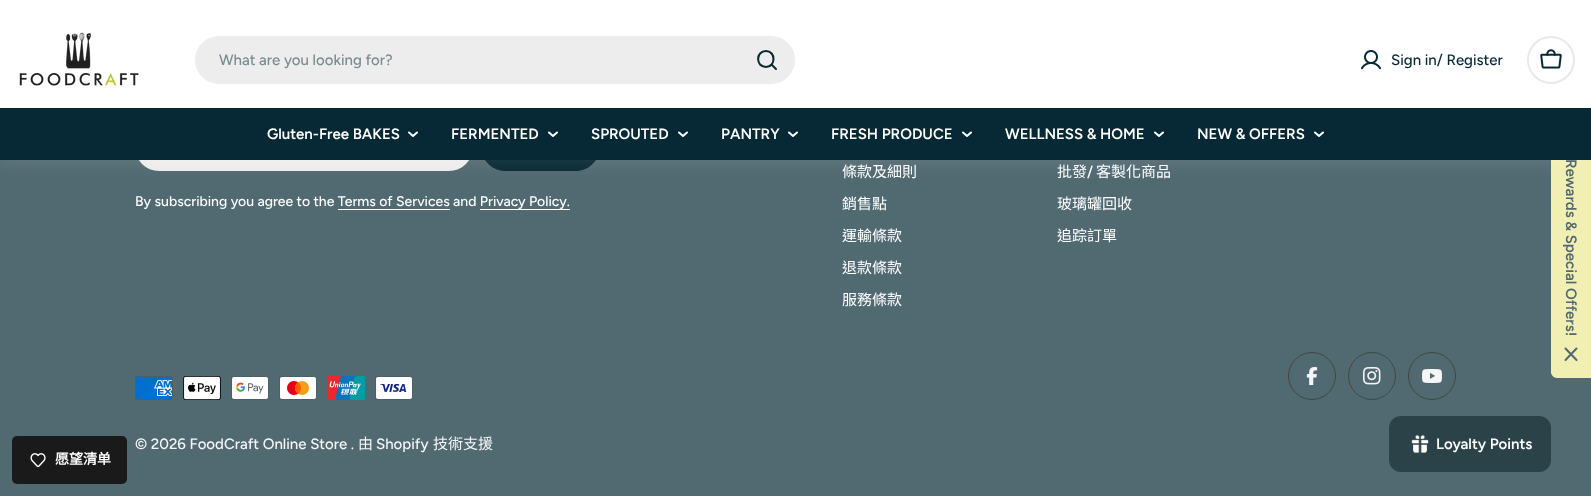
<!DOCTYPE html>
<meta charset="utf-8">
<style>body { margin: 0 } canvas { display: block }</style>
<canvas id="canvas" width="1591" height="496"></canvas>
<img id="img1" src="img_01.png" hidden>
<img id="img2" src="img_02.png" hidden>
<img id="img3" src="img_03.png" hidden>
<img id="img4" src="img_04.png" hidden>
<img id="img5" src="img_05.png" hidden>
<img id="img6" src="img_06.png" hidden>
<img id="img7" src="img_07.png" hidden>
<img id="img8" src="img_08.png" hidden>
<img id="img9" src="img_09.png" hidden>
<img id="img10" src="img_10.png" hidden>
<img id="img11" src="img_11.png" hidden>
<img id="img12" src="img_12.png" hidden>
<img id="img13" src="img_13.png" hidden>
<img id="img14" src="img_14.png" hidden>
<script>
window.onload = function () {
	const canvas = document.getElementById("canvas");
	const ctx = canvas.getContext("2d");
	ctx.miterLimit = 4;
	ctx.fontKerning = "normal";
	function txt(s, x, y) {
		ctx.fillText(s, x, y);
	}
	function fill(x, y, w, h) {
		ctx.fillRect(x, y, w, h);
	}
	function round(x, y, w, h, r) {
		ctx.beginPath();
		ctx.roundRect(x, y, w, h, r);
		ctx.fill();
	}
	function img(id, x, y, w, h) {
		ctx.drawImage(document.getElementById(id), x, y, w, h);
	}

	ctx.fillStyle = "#516971";
	fill(0, 0, 1591, 496);
	ctx.fillStyle = "#EDEDED";
	round(135, 123, 338, 48, 24);
	ctx.fillStyle = "#072835";
	ctx.beginPath();
	ctx.roundRect(481.5, 123.5, 118, 47, 23.5);
	ctx.fill();
	ctx.strokeStyle = "#072835";
	ctx.stroke();
	ctx.fillStyle = "#F2EFB3";
	ctx.beginPath();
	ctx.moveTo(1551, 372);
	ctx.lineTo(1551, 124);
	ctx.bezierCurveTo(1551, 121, 1554, 118, 1557, 118);
	ctx.lineTo(1591, 118);
	ctx.lineTo(1591, 378);
	ctx.lineTo(1557, 378);
	ctx.bezierCurveTo(1554, 378, 1551, 375, 1551, 372);
	ctx.closePath();
	ctx.fill();
	ctx.beginPath();
	ctx.moveTo(1551.5, 371.5);
	ctx.lineTo(1551.5, 124.5);
	ctx.bezierCurveTo(1551.5, 121.5, 1554, 119, 1557, 119);
	ctx.lineTo(1590.5, 119);
	ctx.lineTo(1590.5, 377);
	ctx.lineTo(1557, 377);
	ctx.bezierCurveTo(1554, 377, 1551.5, 374.5, 1551.5, 371.5);
	ctx.closePath();
	ctx.strokeStyle = "#F2EFB3";
	ctx.stroke();
	ctx.fillStyle = "rgba(255, 255, 255, 0.1)";
	ctx.filter = "blur(9px)";
	ctx.beginPath();
	ctx.rect(0, 112, 1591, 52);
	ctx.fill();
	ctx.filter = "none";
	ctx.fillStyle = "#FFFFFF";
	fill(0, 0, 1591, 108);
	img("img1", 19, 32, 120, 54);
	ctx.fillStyle = "#EDEDED";
	round(195, 36, 600, 48, 24);
	ctx.beginPath();
	ctx.moveTo(766, 67);
	ctx.bezierCurveTo(776, 67, 776, 51, 766, 51);
	ctx.bezierCurveTo(755.5, 51, 755.5, 67, 766, 67);
	ctx.closePath();
	ctx.moveTo(771.5, 64.5);
	ctx.lineTo(776, 69);
	ctx.strokeStyle = "#072835";
	ctx.lineWidth = 2;
	ctx.lineCap = "round";
	ctx.lineJoin = "round";
	ctx.stroke();
	img("img2", 1360, 50, 22, 20);
	ctx.beginPath();
	ctx.arc(1551, 60, 23, 0, Math.PI * 2);
	ctx.strokeStyle = "#E6E9EB";
	ctx.stroke();
	img("img3", 1540, 49, 22, 20);
	ctx.fillStyle = "#072835";
	fill(0, 108, 1591, 52);
	ctx.beginPath();
	ctx.moveTo(417, 132.5);
	ctx.lineTo(413, 136);
	ctx.lineTo(409, 132.5);
	ctx.strokeStyle = "#FFFFFF";
	ctx.stroke();
	ctx.beginPath();
	ctx.moveTo(557, 132.5);
	ctx.lineTo(553, 136);
	ctx.lineTo(549, 132.5);
	ctx.stroke();
	ctx.beginPath();
	ctx.moveTo(687, 132.5);
	ctx.lineTo(683, 136);
	ctx.lineTo(679, 132.5);
	ctx.stroke();
	ctx.beginPath();
	ctx.moveTo(797, 132.5);
	ctx.lineTo(793, 136);
	ctx.lineTo(789, 132.5);
	ctx.stroke();
	ctx.beginPath();
	ctx.moveTo(971, 132.5);
	ctx.lineTo(967, 136);
	ctx.lineTo(963, 132.5);
	ctx.stroke();
	ctx.beginPath();
	ctx.moveTo(1163, 132.5);
	ctx.lineTo(1159, 136);
	ctx.lineTo(1155, 132.5);
	ctx.stroke();
	ctx.beginPath();
	ctx.moveTo(1323, 132.5);
	ctx.lineTo(1319, 136);
	ctx.lineTo(1315, 132.5);
	ctx.stroke();
	ctx.fillStyle = "#FFFFFF";
	fill(338, 209, 112, 1);
	fill(480, 209, 90, 1);
	img("img4", 135, 376, 38, 24);
	img("img5", 183, 376, 38, 24);
	img("img6", 231, 376, 38, 24);
	img("img7", 279, 376, 38, 24);
	img("img8", 327, 376, 38, 24);
	img("img9", 375, 376, 38, 24);
	ctx.beginPath();
	ctx.arc(1312, 376, 23.5, 0, Math.PI * 2);
	ctx.strokeStyle = "#414A3F";
	ctx.lineWidth = 1;
	ctx.stroke();
	img("img10", 1306, 367, 12, 18);
	ctx.beginPath();
	ctx.arc(1372, 376, 23.5, 0, Math.PI * 2);
	ctx.stroke();
	img("img11", 1363, 367, 18, 18);
	ctx.beginPath();
	ctx.arc(1432, 376, 23.5, 0, Math.PI * 2);
	ctx.stroke();
	img("img12", 1422, 369, 20, 14);
	ctx.beginPath();
	ctx.moveTo(1576.5, 360);
	ctx.lineTo(1565.5, 348.5);
	ctx.moveTo(1565.5, 360);
	ctx.lineTo(1576.5, 348.5);
	ctx.strokeStyle = "#516971";
	ctx.lineWidth = 2;
	ctx.stroke();
	ctx.fillStyle = "#2C4249";
	round(1389, 416, 162, 56, 12);
	img("img13", 1411, 435, 18, 18);
	ctx.fillStyle = "#1A1A1A";
	round(12, 436, 115, 48, 5);
	img("img14", 30, 453, 16, 15);
	ctx.font = "500 15px Figtree";
	ctx.fillStyle = "#7A8B91";
	txt("What are you looking for?", 219, 65);
	ctx.fillStyle = "#072835";
	txt("Sign in/ Register", 1391, 65);
	ctx.font = "600 15px Figtree";
	ctx.fillStyle = "#FFFFFF";
	txt("Gluten-Free BAKES", 267, 139);
	txt("FERMENTED", 451, 139);
	txt("SPROUTED", 591, 139);
	txt("PANTRY", 721, 139);
	txt("FRESH PRODUCE", 831, 139);
	txt("WELLNESS & HOME", 1005, 139);
	txt("NEW & OFFERS", 1197, 139);
	ctx.font = "500 14px Figtree";
	txt("By subscribing you agree to the Terms of Services and Privacy Policy.", 135, 206);
	ctx.font = "15px Noto Sans CJK TC";
	txt("條款及細則", 842, 177);
	txt("銷售點", 842, 209);
	txt("運輸條款", 842, 241);
	txt("退款條款", 842, 273);
	txt("服務條款", 842, 305);
	txt("批發", 1057, 177);
	ctx.font = "500 15px Figtree";
	txt("/", 1087, 177);
	ctx.font = "15px Noto Sans CJK TC";
	txt("客製化商品", 1096, 177);
	txt("玻璃罐回收", 1057, 209);
	txt("追踪訂單", 1057, 241);
	ctx.font = "500 15px Figtree";
	ctx.fillStyle = "#F6F6F6";
	txt("© 2026 FoodCraft Online Store .", 135, 449);
	ctx.font = "15px Noto Sans CJK TC";
	txt("由", 358, 449);
	ctx.font = "500 15px Figtree";
	txt("Shopify", 376, 449);
	ctx.font = "15px Noto Sans CJK TC";
	txt("技術支援", 433, 449);
	ctx.font = "600 15px Figtree";
	ctx.fillStyle = "#516971";
	ctx.save();
	ctx.translate(1566, 159);
	ctx.rotate(90 * Math.PI / 180);
	ctx.fillText("Rewards & Special Offers!", 0, 0);
	ctx.restore();
	ctx.fillStyle = "#FFFFFF";
	txt("Loyalty Points", 1436, 449);
	ctx.font = "bold 14px Noto Sans CJK TC";
	txt("愿望清单", 55, 464);
};
</script>
